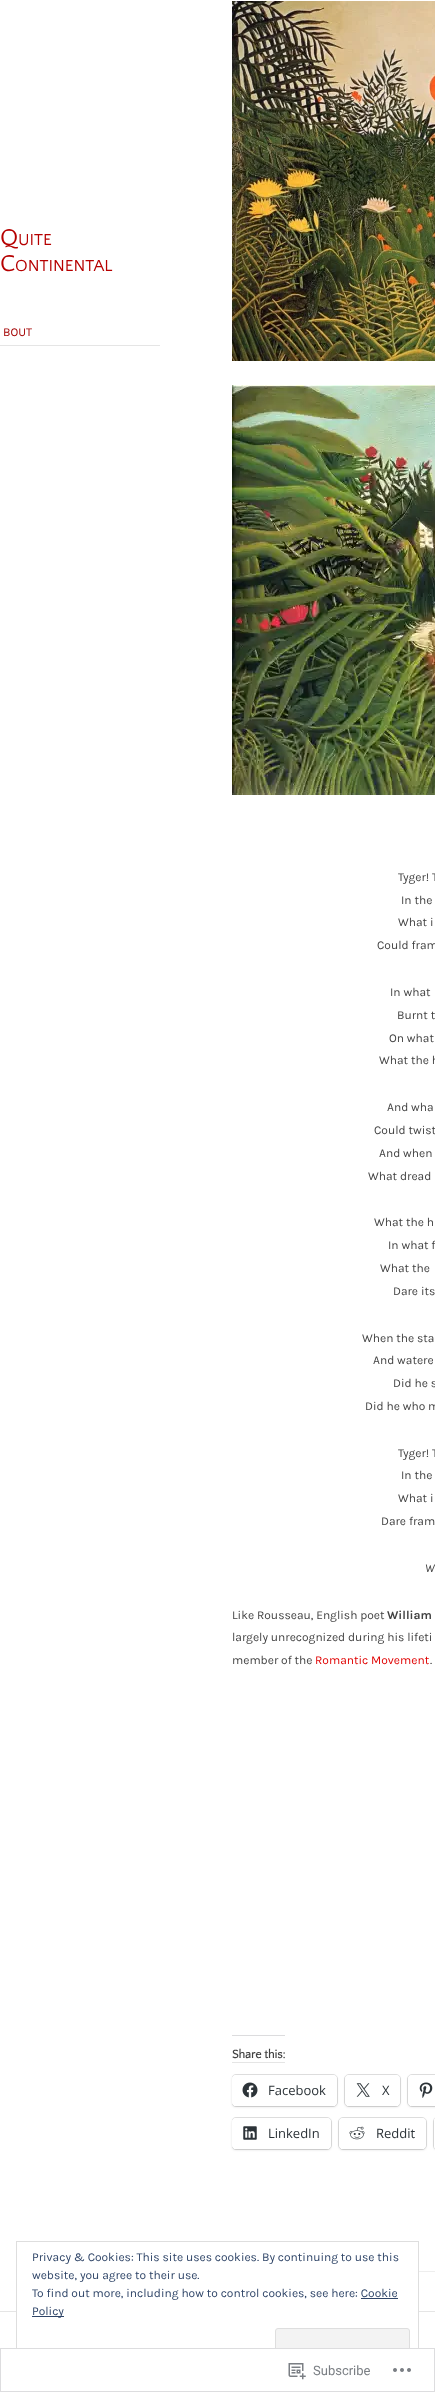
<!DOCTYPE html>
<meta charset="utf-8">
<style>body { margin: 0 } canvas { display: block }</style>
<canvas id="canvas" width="435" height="2392"></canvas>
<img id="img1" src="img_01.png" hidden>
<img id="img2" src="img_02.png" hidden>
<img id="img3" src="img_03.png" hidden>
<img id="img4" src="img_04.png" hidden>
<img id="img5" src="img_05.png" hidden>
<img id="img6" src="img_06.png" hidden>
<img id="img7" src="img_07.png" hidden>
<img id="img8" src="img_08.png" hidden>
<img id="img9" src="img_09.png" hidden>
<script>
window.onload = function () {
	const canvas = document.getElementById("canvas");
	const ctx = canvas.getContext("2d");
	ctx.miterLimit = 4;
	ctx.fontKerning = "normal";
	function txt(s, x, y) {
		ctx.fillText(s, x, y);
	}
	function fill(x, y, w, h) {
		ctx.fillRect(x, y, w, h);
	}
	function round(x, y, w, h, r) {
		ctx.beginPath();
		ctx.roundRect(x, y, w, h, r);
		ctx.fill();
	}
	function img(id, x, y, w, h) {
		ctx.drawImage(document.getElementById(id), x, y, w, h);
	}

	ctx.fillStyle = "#FFFFFF";
	fill(0, 0, 435, 2392);
	ctx.fillStyle = "#E5E5E5";
	fill(0, 345, 160, 1);
	img("img1", 232, 1, 203, 360);
	img("img2", 232, 385, 203, 410);
	fill(232, 2062, 53, 1);
	ctx.fillStyle = "#DCDCDE";
	fill(232, 2035, 53, 1);
	ctx.save();
	ctx.beginPath();
	ctx.rect(232, 0, 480, 2223);
	ctx.clip();
	ctx.beginPath();
	ctx.roundRect(231.5, 2074.5, 106, 32, 4.5);
	ctx.strokeStyle = "#E0E0E0";
	ctx.stroke();
	ctx.restore();
	ctx.fillStyle = "rgba(0, 0, 0, 0.12)";
	ctx.filter = "blur(1px)";
	ctx.beginPath();
	ctx.roundRect(232, 2076, 105, 31, 4);
	ctx.fill();
	ctx.filter = "none";
	ctx.fillStyle = "#FFFFFF";
	round(232, 2075, 105, 31, 4);
	fill(234, 2105, 101, 1);
	img("img3", 242, 2082, 16, 16);
	ctx.beginPath();
	ctx.roundRect(344.5, 2074.5, 56, 32, 4.5);
	ctx.strokeStyle = "#E0E0E0";
	ctx.stroke();
	ctx.fillStyle = "rgba(0, 0, 0, 0.12)";
	ctx.filter = "blur(1px)";
	ctx.beginPath();
	ctx.roundRect(345, 2076, 55, 31, 4);
	ctx.fill();
	ctx.filter = "none";
	ctx.fillStyle = "#FFFFFF";
	round(345, 2075, 55, 31, 4);
	fill(347, 2105, 51, 1);
	img("img4", 356, 2083, 14, 14);
	ctx.beginPath();
	ctx.roundRect(407.5, 2074.5, 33, 32, 4.5);
	ctx.stroke();
	ctx.fillStyle = "rgba(0, 0, 0, 0.12)";
	ctx.filter = "blur(1px)";
	ctx.beginPath();
	ctx.roundRect(408, 2076, 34, 31, 4);
	ctx.fill();
	ctx.filter = "none";
	ctx.fillStyle = "#FFFFFF";
	round(408, 2075, 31, 31, 4);
	fill(410, 2105, 1, 1);
	img("img5", 419, 2082, 14, 16);
	ctx.save();
	ctx.beginPath();
	ctx.rect(232, 0, 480, 2223);
	ctx.clip();
	ctx.beginPath();
	ctx.roundRect(231.5, 2117.5, 100, 32, 4.5);
	ctx.stroke();
	ctx.restore();
	ctx.fillStyle = "rgba(0, 0, 0, 0.12)";
	ctx.filter = "blur(1px)";
	ctx.beginPath();
	ctx.roundRect(232, 2119, 99, 31, 4);
	ctx.fill();
	ctx.filter = "none";
	ctx.fillStyle = "#FFFFFF";
	round(232, 2118, 99, 31, 4);
	fill(234, 2148, 95, 1);
	img("img6", 243, 2126, 14, 14);
	ctx.beginPath();
	ctx.roundRect(338.5, 2117.5, 88, 32, 4.5);
	ctx.stroke();
	ctx.fillStyle = "rgba(0, 0, 0, 0.12)";
	ctx.filter = "blur(1px)";
	ctx.beginPath();
	ctx.roundRect(339, 2119, 87, 31, 4);
	ctx.fill();
	ctx.filter = "none";
	ctx.fillStyle = "#FFFFFF";
	round(339, 2118, 87, 31, 4);
	fill(341, 2148, 83, 1);
	img("img7", 349, 2126, 16, 14);
	ctx.beginPath();
	ctx.roundRect(433.5, 2117.5, 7, 32, 4.5);
	ctx.stroke();
	ctx.fillStyle = "rgba(0, 0, 0, 0.12)";
	ctx.filter = "blur(1px)";
	ctx.beginPath();
	ctx.roundRect(434, 2119, 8, 31, 4);
	ctx.fill();
	ctx.filter = "none";
	ctx.fillStyle = "#FFFFFF";
	round(434, 2118, 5, 31, 4);
	ctx.fillStyle = "#EEEEEE";
	fill(419, 2271, 16, 1);
	ctx.fillStyle = "#E5E5E5";
	fill(0, 2311, 435, 1);
	ctx.fillStyle = "#FFFFFF";
	fill(17, 2311, 401, 1);
	ctx.strokeStyle = "#DEDEDE";
	ctx.strokeRect(16.5, 2241.5, 402, 134);
	ctx.fillStyle = "#2E4467";
	fill(361, 2298, 37, 1);
	fill(32, 2316, 32, 1);
	ctx.fillStyle = "#F3F3F3";
	ctx.beginPath();
	ctx.roundRect(275.5, 2328.5, 134, 38, 2.5);
	ctx.fill();
	ctx.stroke();
	ctx.fillStyle = "rgba(255, 255, 255, 0.98)";
	fill(16, 2348, 403, 28);
	ctx.strokeStyle = "rgba(220, 220, 222, 0.98)";
	ctx.strokeRect(0.5, 2348.5, 434, 43);
	img("img8", 288, 2363, 18, 17);
	img("img9", 393, 2368, 18, 4);
	ctx.font = "24px Quattrocento Sans";
	ctx.fillStyle = "#B60000";
	txt("Q", 0, 245);
	ctx.font = "16.75px Quattrocento Sans";
	txt("UITE", 18, 245);
	ctx.font = "24px Quattrocento Sans";
	txt("C", 0, 271);
	ctx.font = "16.75px Quattrocento Sans";
	txt("ONTINENTAL", 15, 271);
	ctx.font = "12px Karla";
	ctx.fillStyle = "#A30000";
	txt("BOUT", 3, 336);
	ctx.fillStyle = "#424242";
	txt("Tyger! T", 398, 881);
	txt("In the", 401, 904);
	txt("What i", 398, 926);
	txt("Could fram", 377, 949);
	txt("In what", 390, 996);
	txt("Burnt t", 397, 1019);
	txt("On what", 389, 1042);
	txt("What the h", 379, 1064);
	txt("And wha", 387, 1111);
	txt("Could twist", 374, 1134);
	txt("And when", 379, 1157);
	txt("What dread", 368, 1180);
	txt("What the h", 374, 1226);
	txt("In what f", 388, 1249);
	txt("What the", 380, 1272);
	txt("Dare its", 393, 1295);
	txt("When the sta", 362, 1342);
	txt("And watere", 373, 1364);
	txt("Did he s", 393, 1387);
	txt("Did he who m", 365, 1410);
	txt("Tyger! T", 398, 1457);
	txt("In the", 401, 1479);
	txt("What i", 398, 1502);
	txt("Dare fram", 381, 1525);
	ctx.font = "italic 12px Karla";
	txt("W", 425, 1572);
	ctx.font = "12px Karla";
	txt("Like Rousseau, English poet", 232, 1619);
	ctx.font = "bold 12px Karla";
	txt("William", 387, 1619);
	ctx.font = "12px Karla";
	txt("largely unrecognized during his lifeti", 232, 1641);
	txt("member of the", 232, 1664);
	ctx.fillStyle = "#E00000";
	txt("Romantic Movement", 315, 1664);
	ctx.fillStyle = "#424242";
	txt(".", 430, 1664);
	ctx.font = "bold 12px Quattrocento Sans";
	txt("Share this:", 232, 2058);
	ctx.font = "13px Open Sans";
	ctx.fillStyle = "#2C3338";
	txt("Facebook", 268, 2095);
	txt("X", 382, 2095);
	txt("LinkedIn", 268, 2138);
	txt("Reddit", 376, 2138);
	ctx.font = "12px Karla";
	ctx.fillStyle = "#2E4467";
	txt("Privacy & Cookies: This site uses cookies. By continuing to use this", 32, 2261);
	txt("website, you agree to their use.", 32, 2279);
	txt("To find out more, including how to control cookies, see here: Cookie", 32, 2297);
	txt("Policy", 32, 2315);
	ctx.font = "13px Roboto";
	ctx.fillStyle = "#7B7F84";
	txt("Subscribe", 313, 2375);
};
</script>
